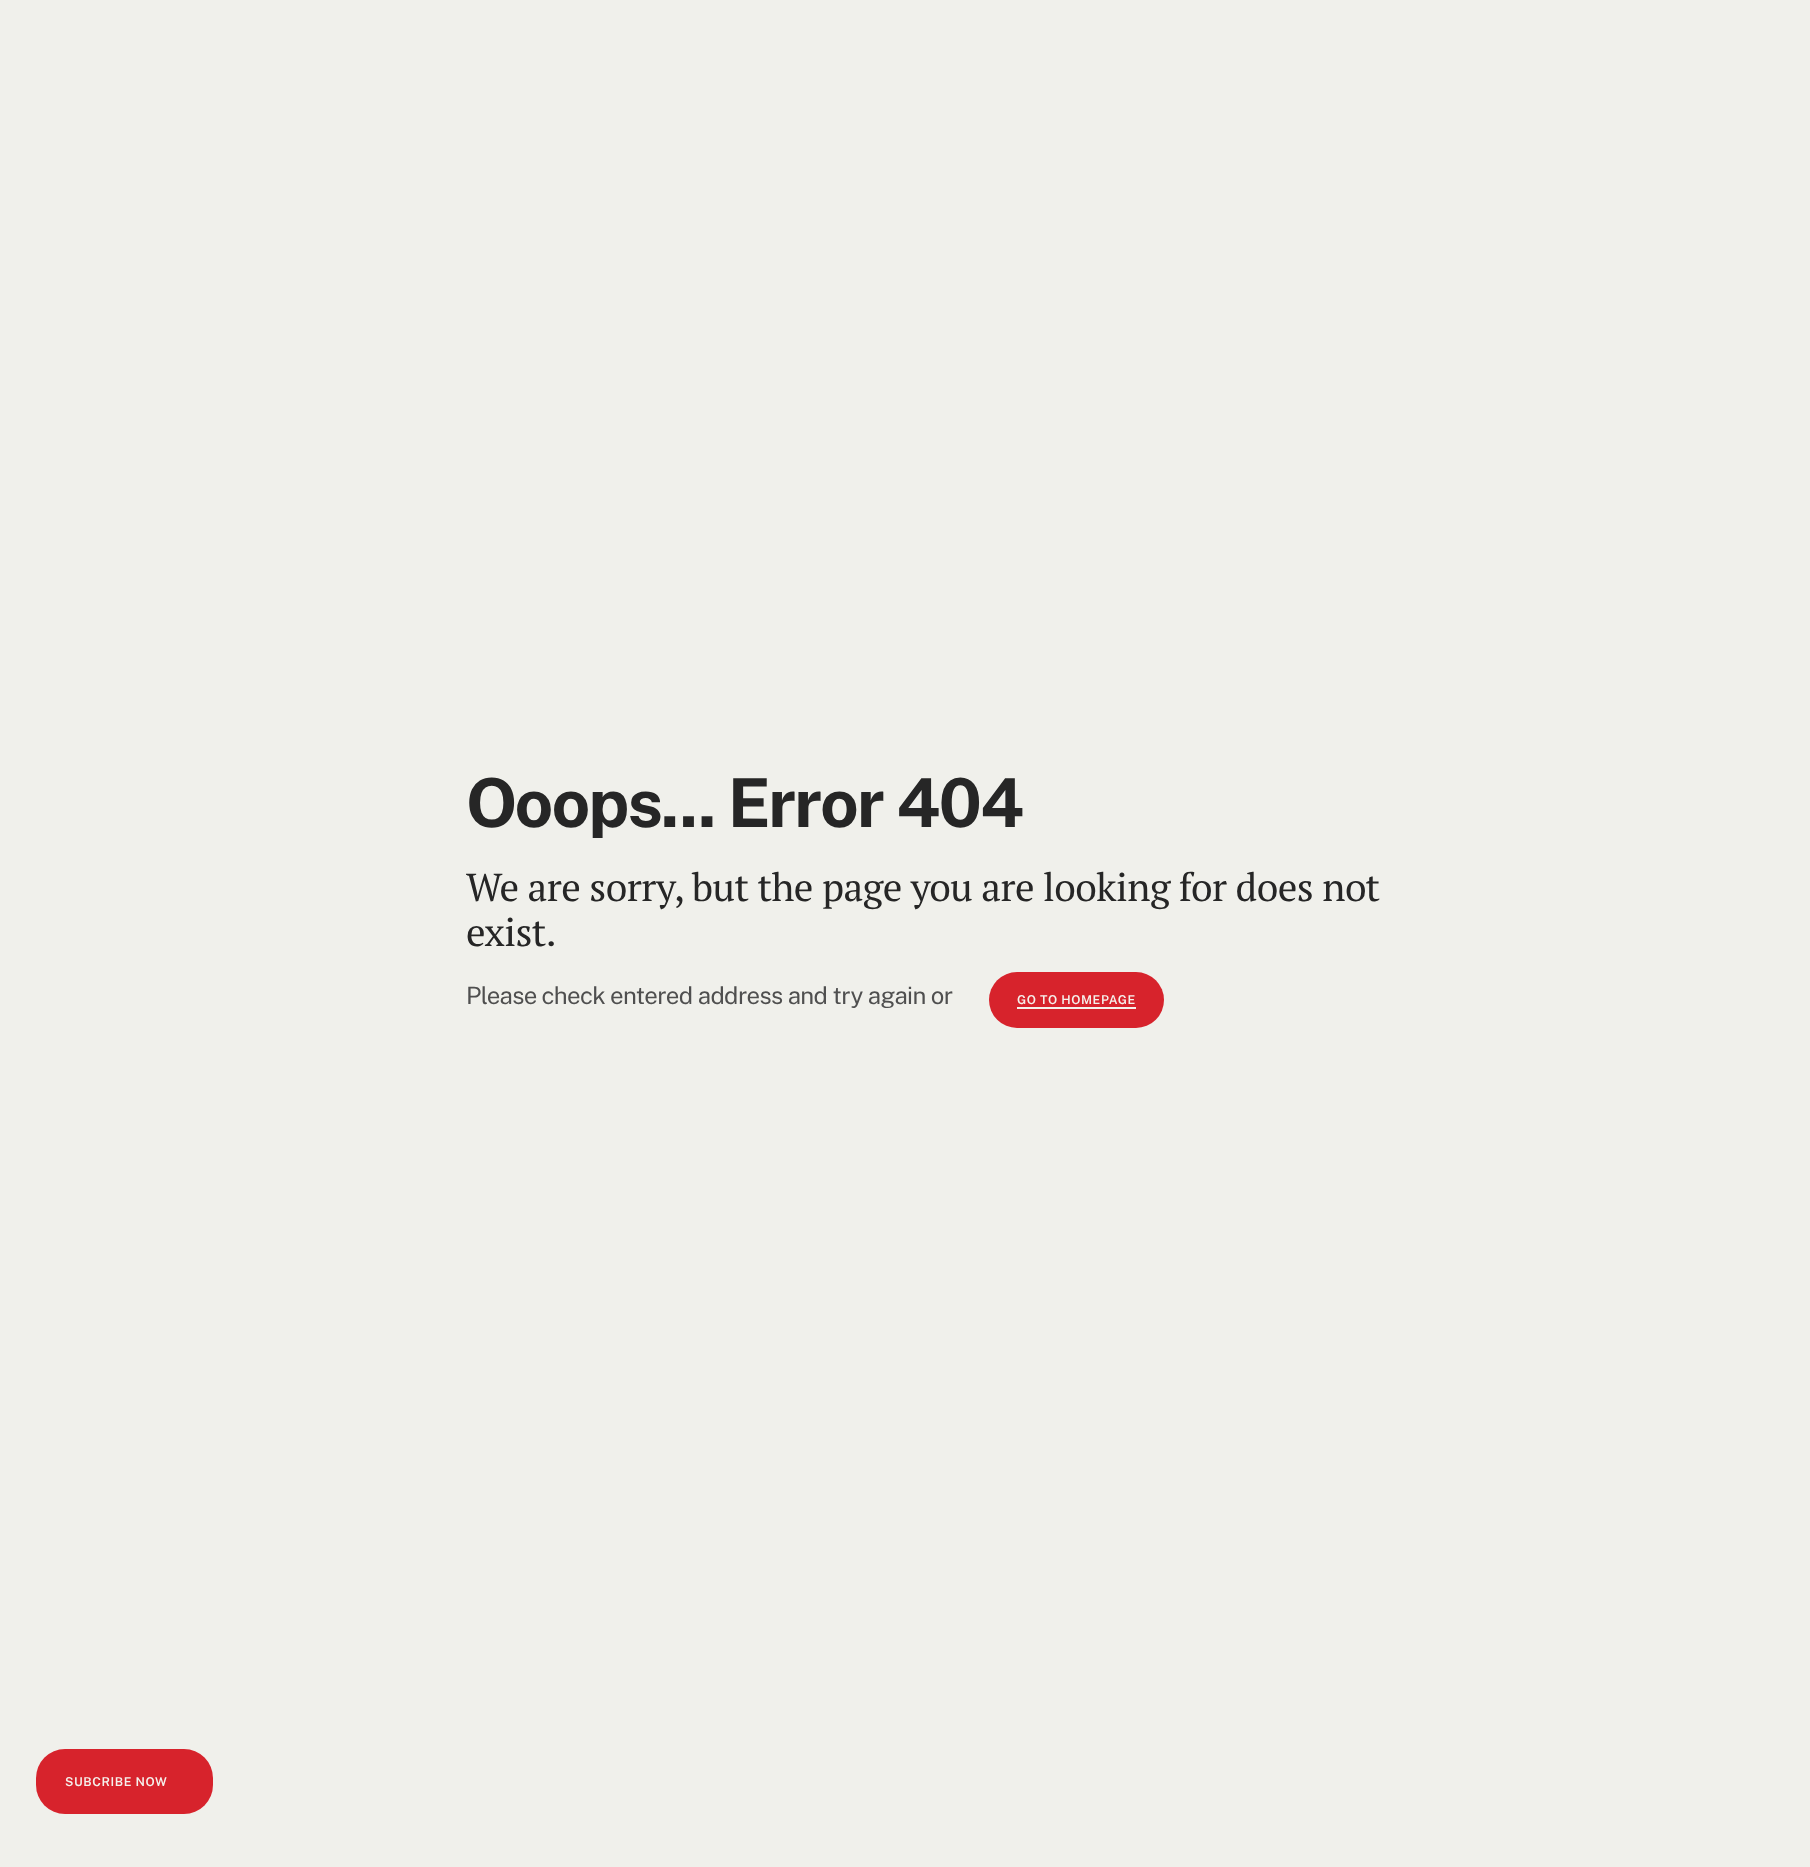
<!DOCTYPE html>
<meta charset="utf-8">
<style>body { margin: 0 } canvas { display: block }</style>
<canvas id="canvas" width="1810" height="1867"></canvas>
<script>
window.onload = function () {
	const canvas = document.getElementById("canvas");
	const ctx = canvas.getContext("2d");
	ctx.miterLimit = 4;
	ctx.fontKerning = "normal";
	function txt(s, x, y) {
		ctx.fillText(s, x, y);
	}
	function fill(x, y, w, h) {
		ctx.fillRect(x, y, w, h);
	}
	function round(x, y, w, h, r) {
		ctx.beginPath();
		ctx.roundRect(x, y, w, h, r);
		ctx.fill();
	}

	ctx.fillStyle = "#F0F0EB";
	fill(0, 0, 1810, 1867);
	ctx.fillStyle = "#D7232C";
	round(989, 972, 175, 56, 28);
	ctx.fillStyle = "#F5F1EC";
	fill(1017, 1007, 119, 2);
	ctx.fillStyle = "#D7232C";
	round(36, 1749, 177, 65, 29);
	ctx.letterSpacing = "-1.9px";
	ctx.font = "bold 67.5px Public Sans";
	ctx.fillStyle = "#262626";
	txt("Ooops... Error 404", 466, 827);
	ctx.letterSpacing = "-0.5px";
	ctx.font = "39px PT Serif";
	txt("We are sorry, but the page you are looking for does not", 466, 901);
	txt("exist.", 466, 946);
	ctx.letterSpacing = "-0.6px";
	ctx.font = "24px Public Sans";
	ctx.fillStyle = "#4F4F4F";
	txt("Please check entered address and try again or", 466, 1004);
	ctx.letterSpacing = "0.6px";
	ctx.font = "600 12.25px Public Sans";
	ctx.fillStyle = "#F5F1EC";
	txt("GO TO HOMEPAGE", 1017, 1004);
	txt("SUBCRIBE NOW", 65, 1786);
};
</script>
